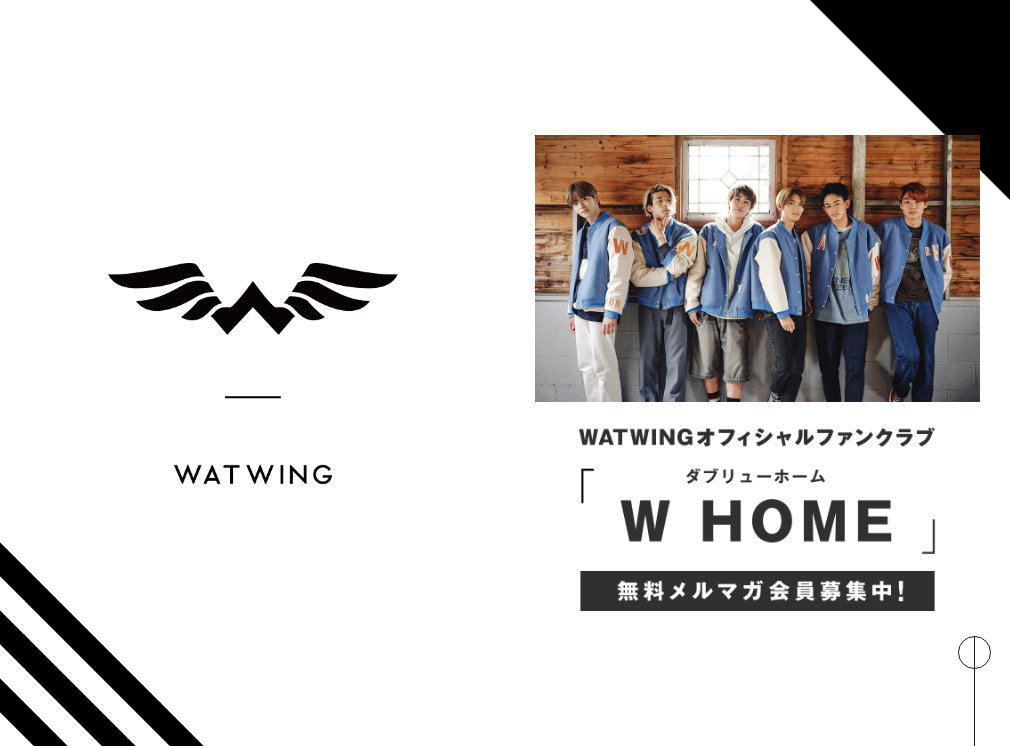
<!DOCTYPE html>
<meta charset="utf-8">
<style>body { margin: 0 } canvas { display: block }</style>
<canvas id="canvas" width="1010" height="746"></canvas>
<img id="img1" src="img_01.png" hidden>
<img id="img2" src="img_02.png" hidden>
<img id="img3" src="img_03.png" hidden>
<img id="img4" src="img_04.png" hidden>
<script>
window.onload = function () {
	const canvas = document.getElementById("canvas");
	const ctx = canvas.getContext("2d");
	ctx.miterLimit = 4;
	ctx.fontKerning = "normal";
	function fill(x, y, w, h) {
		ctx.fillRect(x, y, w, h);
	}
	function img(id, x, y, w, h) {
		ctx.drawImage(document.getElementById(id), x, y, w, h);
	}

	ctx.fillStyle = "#FFFFFF";
	fill(0, 0, 1010, 746);
	img("img1", 810, 0, 200, 200);
	img("img2", 0, 542, 204, 204);
	img("img3", 108, 262, 290, 223);
	img("img4", 535, 135, 445, 476);
	ctx.fillStyle = "#1B1A1D";
	fill(974, 636, 1, 110);
	ctx.beginPath();
	ctx.arc(974.5, 652.5, 16, 0, Math.PI * 2);
	ctx.strokeStyle = "#1B1A1D";
	ctx.stroke();
};
</script>
